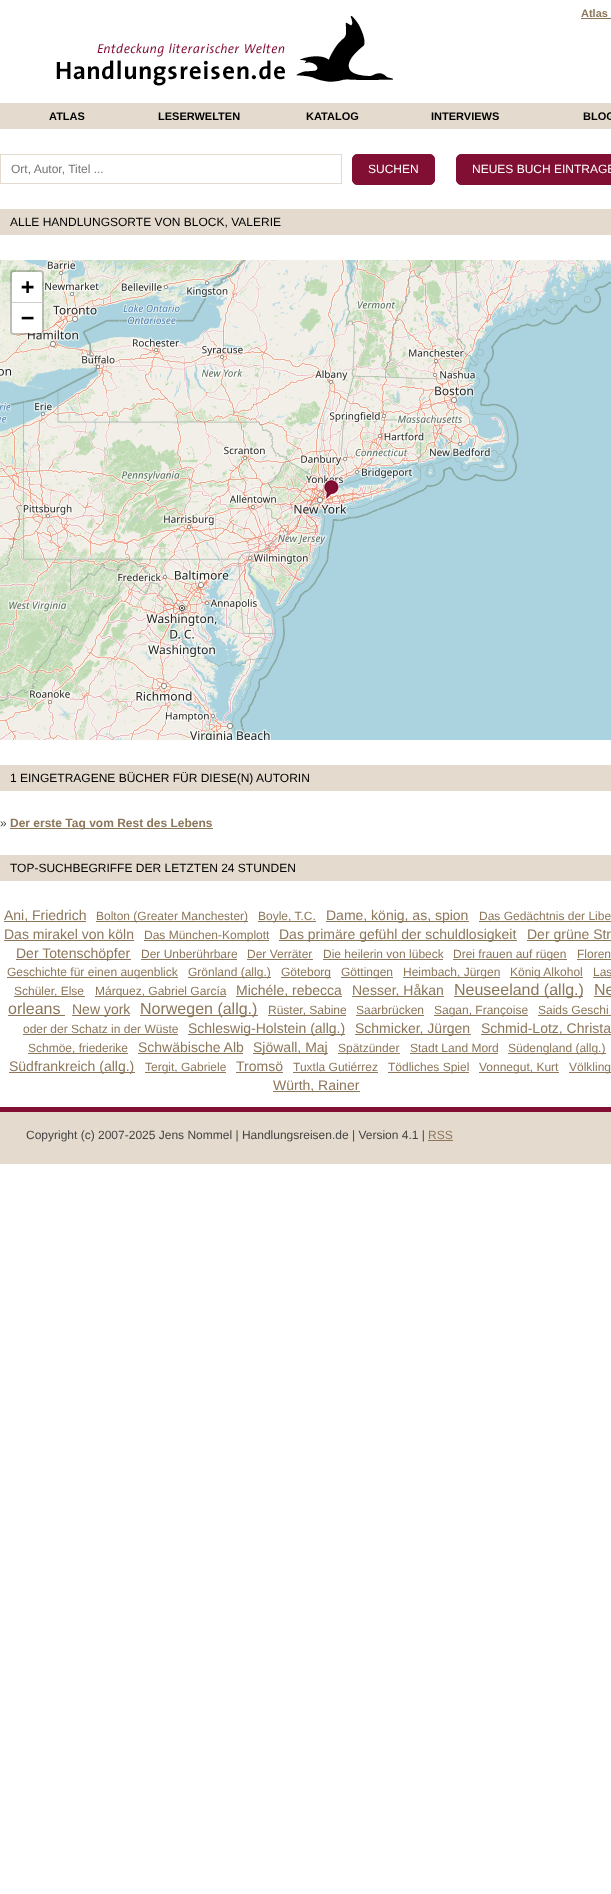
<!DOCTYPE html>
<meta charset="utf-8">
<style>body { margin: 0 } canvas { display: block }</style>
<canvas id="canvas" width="611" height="1894"></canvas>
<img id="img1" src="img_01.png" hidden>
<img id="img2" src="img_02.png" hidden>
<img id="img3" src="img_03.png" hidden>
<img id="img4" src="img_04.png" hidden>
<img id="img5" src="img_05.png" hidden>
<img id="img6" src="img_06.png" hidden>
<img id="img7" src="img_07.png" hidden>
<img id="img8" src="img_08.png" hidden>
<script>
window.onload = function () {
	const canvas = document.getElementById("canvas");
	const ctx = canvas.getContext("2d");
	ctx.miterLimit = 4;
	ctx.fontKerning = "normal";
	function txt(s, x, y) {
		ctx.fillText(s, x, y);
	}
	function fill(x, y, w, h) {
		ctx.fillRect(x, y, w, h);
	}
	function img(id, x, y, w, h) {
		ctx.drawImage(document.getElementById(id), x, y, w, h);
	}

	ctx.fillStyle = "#FFFFFF";
	fill(0, 0, 611, 1894);
	ctx.fillStyle = "#8C775B";
	fill(581, 18, 30, 1);
	img("img1", 56, 16, 337, 70);
	ctx.fillStyle = "#E4DBCE";
	fill(0, 103, 611, 26);
	ctx.strokeStyle = "#E4DBCE";
	ctx.strokeRect(0.5, 154.5, 341, 29);
	ctx.fillStyle = "#810E33";
	ctx.beginPath();
	ctx.roundRect(352.5, 154.5, 82, 30, 4.5);
	ctx.fill();
	ctx.strokeStyle = "#810E33";
	ctx.stroke();
	ctx.beginPath();
	ctx.roundRect(456.5, 154.5, 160, 30, 4.5);
	ctx.fill();
	ctx.stroke();
	ctx.fillStyle = "#E4DBCE";
	fill(0, 209, 611, 26);
	img("img2", 0, 260, 104, 224);
	img("img3", 104, 260, 256, 224);
	img("img4", 360, 260, 251, 224);
	img("img5", 0, 484, 104, 256);
	img("img6", 104, 484, 256, 256);
	img("img7", 360, 484, 251, 256);
	img("img8", 323, 479, 17, 22);
	ctx.beginPath();
	ctx.roundRect(11, 271, 32, 63, 3);
	ctx.strokeStyle = "rgba(0, 0, 0, 0.2)";
	ctx.lineWidth = 2;
	ctx.stroke();
	ctx.fillStyle = "#FFFFFF";
	ctx.beginPath();
	ctx.roundRect(12, 272, 30, 31, [2, 2, 0, 0]);
	ctx.fill();
	ctx.fillStyle = "#CCCCCC";
	fill(12, 302, 30, 1);
	ctx.fillStyle = "#FFFFFF";
	ctx.beginPath();
	ctx.roundRect(12, 303, 30, 30, [0, 0, 2, 2]);
	ctx.fill();
	ctx.fillStyle = "#E4DBCE";
	fill(0, 765, 611, 26);
	ctx.fillStyle = "#8C775B";
	fill(10, 828, 203, 1);
	ctx.fillStyle = "#E4DBCE";
	fill(0, 855, 611, 26);
	ctx.fillStyle = "#8C775B";
	fill(4, 921, 82, 1);
	fill(96, 921, 152, 1);
	fill(258, 921, 58, 1);
	fill(326, 921, 143, 1);
	fill(479, 921, 132, 1);
	fill(4, 940, 130, 1);
	fill(144, 940, 125, 1);
	fill(279, 940, 238, 1);
	fill(527, 940, 84, 1);
	fill(16, 959, 115, 1);
	fill(141, 959, 96, 1);
	fill(247, 959, 66, 1);
	fill(323, 959, 120, 1);
	fill(453, 959, 114, 1);
	fill(577, 959, 34, 1);
	fill(7, 977, 171, 1);
	fill(188, 977, 83, 1);
	fill(281, 977, 50, 1);
	fill(341, 977, 52, 1);
	fill(403, 977, 97, 1);
	fill(510, 977, 73, 1);
	fill(593, 977, 18, 1);
	fill(14, 996, 71, 1);
	fill(95, 996, 131, 1);
	fill(236, 996, 106, 1);
	fill(352, 996, 92, 1);
	fill(454, 996, 129, 1);
	fill(594, 996, 17, 1);
	fill(8, 1015, 57, 1);
	fill(72, 1015, 58, 1);
	fill(140, 1015, 118, 1);
	fill(268, 1015, 78, 1);
	fill(356, 1015, 68, 1);
	fill(434, 1015, 94, 1);
	fill(538, 1015, 73, 1);
	fill(23, 1034, 155, 1);
	fill(188, 1034, 157, 1);
	fill(355, 1034, 116, 1);
	fill(481, 1034, 130, 1);
	fill(28, 1053, 100, 1);
	fill(138, 1053, 105, 1);
	fill(253, 1053, 75, 1);
	fill(338, 1053, 62, 1);
	fill(410, 1053, 88, 1);
	fill(508, 1053, 98, 1);
	fill(9, 1072, 126, 1);
	fill(145, 1072, 81, 1);
	fill(236, 1072, 47, 1);
	fill(293, 1072, 85, 1);
	fill(388, 1072, 81, 1);
	fill(479, 1072, 80, 1);
	fill(569, 1072, 42, 1);
	fill(273, 1091, 87, 1);
	ctx.fillStyle = "#E4DBCE";
	fill(0, 1112, 611, 52);
	ctx.fillStyle = "#810E33";
	fill(0, 1107, 611, 5);
	ctx.fillStyle = "#8C775B";
	fill(428, 1140, 25, 1);
	ctx.font = "bold 11px Liberation Sans";
	txt("Atlas", 581, 17);
	ctx.fillStyle = "#000000";
	txt("ATLAS", 49, 120);
	txt("LESERWELTEN", 158, 120);
	txt("KATALOG", 306, 120);
	txt("INTERVIEWS", 431, 120);
	txt("BLOG", 583, 120);
	ctx.font = "12px Liberation Sans";
	ctx.fillStyle = "#757575";
	txt("Ort, Autor, Titel ...", 11, 173);
	ctx.fillStyle = "#FFFFFF";
	txt("SUCHEN", 368, 173);
	txt("NEUES BUCH EINTRAGE", 472, 173);
	ctx.fillStyle = "#000000";
	txt("ALLE HANDLUNGSORTE VON BLOCK, VALERIE", 10, 226);
	ctx.font = "bold 22px DejaVu Sans Mono";
	txt("+", 21, 294);
	txt("−", 21, 325);
	ctx.font = "12px Liberation Sans";
	txt("1 EINGETRAGENE BÜCHER FÜR DIESE(N) AUTORIN", 10, 782);
	ctx.fillStyle = "#444444";
	txt("»", 0, 827);
	ctx.font = "bold 12px Liberation Sans";
	ctx.fillStyle = "#8C775B";
	txt("Der erste Tag vom Rest des Lebens", 10, 827);
	ctx.font = "12px Liberation Sans";
	ctx.fillStyle = "#000000";
	txt("TOP-SUCHBEGRIFFE DER LETZTEN 24 STUNDEN", 10, 872);
	ctx.font = "14px Liberation Sans";
	ctx.fillStyle = "#8C775B";
	txt("Ani, Friedrich", 4, 920);
	ctx.font = "12px Liberation Sans";
	txt("Bolton (Greater Manchester)", 96, 920);
	txt("Boyle, T.C.", 258, 920);
	ctx.font = "14px Liberation Sans";
	txt("Dame, könig, as, spion", 326, 920);
	ctx.font = "12px Liberation Sans";
	txt("Das Gedächtnis der Libe", 479, 920);
	ctx.font = "14px Liberation Sans";
	txt("Das mirakel von köln", 4, 939);
	ctx.font = "12px Liberation Sans";
	txt("Das München-Komplott", 144, 939);
	ctx.font = "14px Liberation Sans";
	txt("Das primäre gefühl der schuldlosigkeit", 279, 939);
	txt("Der grüne Str", 527, 939);
	txt("Der Totenschöpfer", 16, 958);
	ctx.font = "12px Liberation Sans";
	txt("Der Unberührbare", 141, 958);
	txt("Der Verräter", 247, 958);
	txt("Die heilerin von lübeck", 323, 958);
	txt("Drei frauen auf rügen", 453, 958);
	txt("Floren", 577, 958);
	txt("Geschichte für einen augenblick", 7, 976);
	txt("Grönland (allg.)", 188, 976);
	txt("Göteborg", 281, 976);
	txt("Göttingen", 341, 976);
	txt("Heimbach, Jürgen", 403, 976);
	txt("König Alkohol", 510, 976);
	txt("Las", 593, 976);
	txt("Schüler, Else", 14, 995);
	txt("Márquez, Gabriel García", 95, 995);
	ctx.font = "14px Liberation Sans";
	txt("Michéle, rebecca", 236, 995);
	txt("Nesser, Håkan", 352, 995);
	ctx.font = "16px Liberation Sans";
	txt("Neuseeland (allg.)", 454, 995);
	txt("Ne", 594, 995);
	txt("orleans", 8, 1014);
	ctx.font = "14px Liberation Sans";
	txt("New york", 72, 1014);
	ctx.font = "16px Liberation Sans";
	txt("Norwegen (allg.)", 140, 1014);
	ctx.font = "12px Liberation Sans";
	txt("Rüster, Sabine", 268, 1014);
	txt("Saarbrücken", 356, 1014);
	txt("Sagan, Françoise", 434, 1014);
	txt("Saids Geschi", 538, 1014);
	txt("oder der Schatz in der Wüste", 23, 1033);
	ctx.font = "14px Liberation Sans";
	txt("Schleswig-Holstein (allg.)", 188, 1033);
	txt("Schmicker, Jürgen", 355, 1033);
	txt("Schmid-Lotz, Christa", 481, 1033);
	ctx.font = "12px Liberation Sans";
	txt("Schmöe, friederike", 28, 1052);
	ctx.font = "14px Liberation Sans";
	txt("Schwäbische Alb", 138, 1052);
	txt("Sjöwall, Maj", 253, 1052);
	ctx.font = "12px Liberation Sans";
	txt("Spätzünder", 338, 1052);
	txt("Stadt Land Mord", 410, 1052);
	txt("Südengland (allg.)", 508, 1052);
	ctx.font = "14px Liberation Sans";
	txt("Südfrankreich (allg.)", 9, 1071);
	ctx.font = "12px Liberation Sans";
	txt("Tergit, Gabriele", 145, 1071);
	ctx.font = "14px Liberation Sans";
	txt("Tromsö", 236, 1071);
	ctx.font = "12px Liberation Sans";
	txt("Tuxtla Gutiérrez", 293, 1071);
	txt("Tödliches Spiel", 388, 1071);
	txt("Vonnegut, Kurt", 479, 1071);
	txt("Völkling", 569, 1071);
	ctx.font = "14px Liberation Sans";
	txt("Würth, Rainer", 273, 1090);
	ctx.font = "12px Liberation Sans";
	ctx.fillStyle = "#444444";
	txt("Copyright (c) 2007-2025 Jens Nommel | Handlungsreisen.de | Version 4.1 |", 26, 1139);
	ctx.fillStyle = "#8C775B";
	txt("RSS", 428, 1139);
};
</script>
